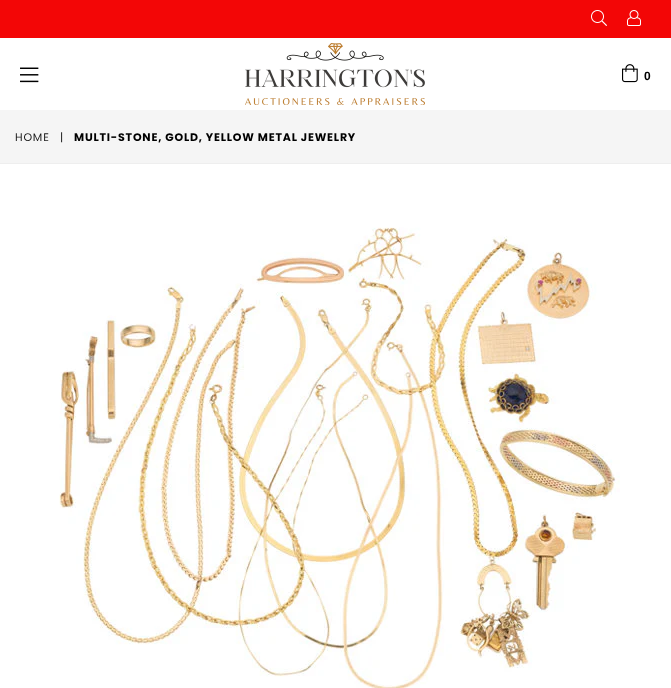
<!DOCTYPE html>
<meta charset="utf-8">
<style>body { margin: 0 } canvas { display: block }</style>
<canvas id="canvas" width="671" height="688"></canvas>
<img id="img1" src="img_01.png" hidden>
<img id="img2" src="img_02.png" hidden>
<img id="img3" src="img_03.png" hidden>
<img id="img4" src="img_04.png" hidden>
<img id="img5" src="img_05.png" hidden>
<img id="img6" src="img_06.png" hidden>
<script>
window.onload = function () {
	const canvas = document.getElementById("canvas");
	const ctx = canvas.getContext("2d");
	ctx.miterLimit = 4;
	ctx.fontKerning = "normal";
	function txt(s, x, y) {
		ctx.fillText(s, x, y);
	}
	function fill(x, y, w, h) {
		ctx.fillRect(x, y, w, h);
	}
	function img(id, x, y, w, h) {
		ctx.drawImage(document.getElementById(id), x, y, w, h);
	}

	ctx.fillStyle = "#FFFFFF";
	fill(0, 0, 671, 688);
	ctx.fillStyle = "#F30606";
	fill(0, 0, 671, 38);
	img("img1", 591, 10, 16, 16);
	img("img2", 627, 10, 14, 16);
	img("img3", 20, 67, 19, 16);
	img("img4", 245, 43, 180, 62);
	img("img5", 622, 64, 16, 19);
	ctx.fillStyle = "#F5F5F5";
	fill(0, 110, 671, 53);
	ctx.fillStyle = "#EEEEEE";
	fill(0, 163, 671, 1);
	img("img6", 59, 227, 561, 461);
	ctx.font = "bold 12px Liberation Sans";
	ctx.fillStyle = "#000000";
	txt("0", 644, 80);
	ctx.letterSpacing = "0.8px";
	ctx.font = "11px Poppins";
	ctx.fillStyle = "#1A1A1A";
	txt("HOME", 15, 141);
	txt("|", 60, 141);
	ctx.font = "bold 11px Poppins";
	ctx.fillStyle = "#000000";
	txt("MULTI-STONE, GOLD, YELLOW METAL JEWELRY", 74, 141);
};
</script>
